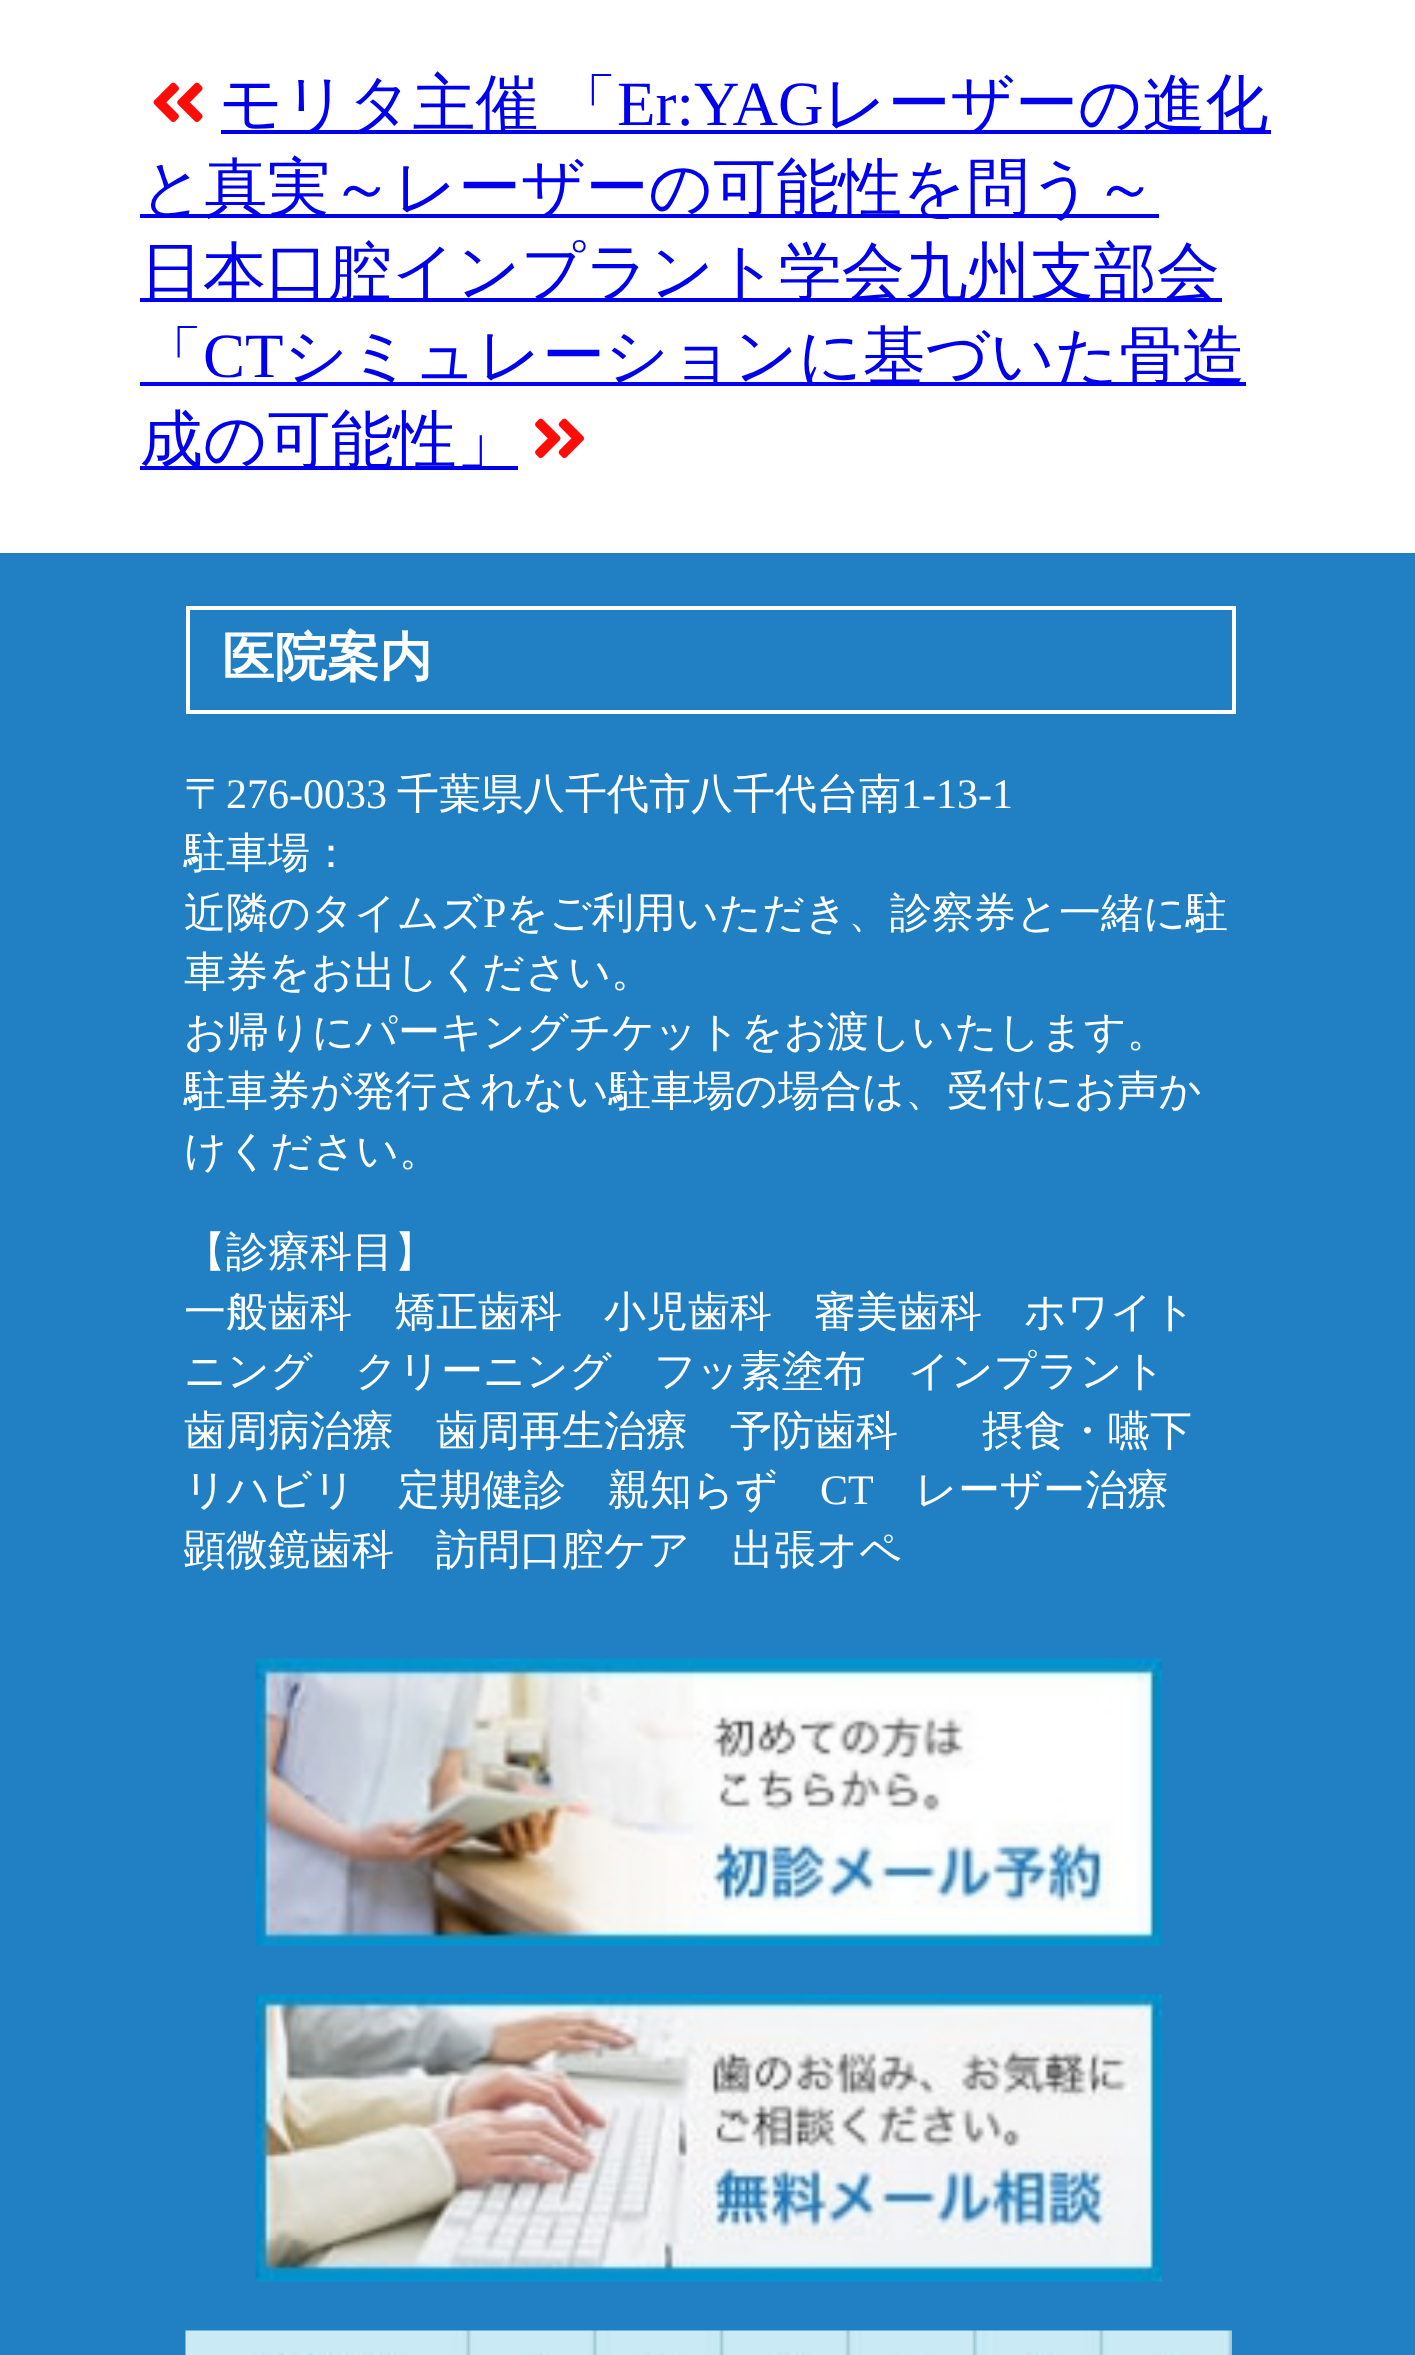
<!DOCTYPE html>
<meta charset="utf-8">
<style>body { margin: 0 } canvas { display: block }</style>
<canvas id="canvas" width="1415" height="2355"></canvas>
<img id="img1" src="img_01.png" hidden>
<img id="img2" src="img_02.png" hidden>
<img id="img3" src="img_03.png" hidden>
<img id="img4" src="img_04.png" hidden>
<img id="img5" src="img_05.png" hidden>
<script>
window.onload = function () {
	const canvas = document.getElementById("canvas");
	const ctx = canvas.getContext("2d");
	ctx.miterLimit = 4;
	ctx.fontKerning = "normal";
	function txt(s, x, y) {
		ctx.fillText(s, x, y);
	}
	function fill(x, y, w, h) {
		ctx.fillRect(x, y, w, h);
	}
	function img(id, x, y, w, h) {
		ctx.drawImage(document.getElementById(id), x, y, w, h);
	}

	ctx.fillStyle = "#FFFFFF";
	fill(0, 0, 1415, 2355);
	img("img1", 153, 82, 50, 40);
	ctx.fillStyle = "#0000EE";
	fill(221, 130, 1050, 4);
	fill(140, 214, 1019, 4);
	fill(140, 298, 1082, 4);
	fill(140, 382, 1106, 4);
	fill(140, 466, 378, 4);
	img("img2", 535, 418, 49, 40);
	ctx.fillStyle = "#2180C4";
	fill(0, 553, 1415, 1802);
	ctx.strokeStyle = "#FFFFFF";
	ctx.lineWidth = 4;
	ctx.strokeRect(188, 608, 1046, 104);
	img("img3", 255, 1658, 907, 288);
	img("img4", 255, 1994, 907, 288);
	img("img5", 185, 2330, 1047, 25);
	ctx.wordSpacing = "-3px";
	ctx.font = "500 63px WenQuanYi Zen Hei";
	ctx.fillStyle = "#0000EE";
	txt("モリタ主催 「", 219, 125);
	ctx.wordSpacing = "0px";
	ctx.font = "63px Liberation Serif";
	txt("Er:YAG", 617, 125);
	ctx.font = "500 63px WenQuanYi Zen Hei";
	txt("レーザーの進化", 823, 125);
	txt("と真実～レーザーの可能性を問う～", 140, 209);
	txt("日本口腔インプラント学会九州支部会", 140, 293);
	txt("「", 140, 377);
	ctx.font = "63px Liberation Serif";
	txt("CT", 203, 377);
	ctx.font = "500 63px WenQuanYi Zen Hei";
	txt("シミュレーションに基づいた骨造", 284, 377);
	txt("成の可能性」", 140, 461);
	ctx.font = "bold 52.5px WenQuanYi Zen Hei";
	ctx.fillStyle = "#FFFFFF";
	txt("医院案内", 222, 675);
	ctx.font = "500 42px WenQuanYi Zen Hei";
	txt("〒", 184, 808);
	ctx.font = "42px Liberation Serif";
	txt("276-0033", 226, 808);
	ctx.font = "500 42px WenQuanYi Zen Hei";
	txt("千葉県八千代市八千代台南", 397, 808);
	ctx.font = "42px Liberation Serif";
	txt("1-13-1", 901, 808);
	ctx.font = "500 42px WenQuanYi Zen Hei";
	txt("駐車場：", 184, 867);
	txt("近隣のタイムズ", 184, 927);
	ctx.font = "42px Liberation Serif";
	txt("P", 483, 927);
	ctx.font = "500 42px WenQuanYi Zen Hei";
	txt("をご利用いただき、診察券と一緒に駐", 506, 927);
	txt("車券をお出しください。", 184, 986);
	txt("お帰りにパーキングチケットをお渡しいたします。", 184, 1046);
	txt("駐車券が発行されない駐車場の場合は、受付にお声か", 184, 1105);
	txt("けください。", 184, 1165);
	txt("【診療科目】", 184, 1266);
	txt("一般歯科　矯正歯科　小児歯科　審美歯科　ホワイト", 184, 1326);
	txt("ニング　クリーニング　フッ素塗布　インプラント", 184, 1385);
	txt("歯周病治療　歯周再生治療　予防歯科　　摂食・嚥下", 184, 1445);
	txt("リハビリ　定期健診　親知らず", 184, 1504);
	ctx.font = "42px Liberation Serif";
	txt("CT", 820, 1504);
	ctx.font = "500 42px WenQuanYi Zen Hei";
	txt("レーザー治療", 915, 1504);
	txt("顕微鏡歯科　訪問口腔ケア　出張オペ", 184, 1564);
};
</script>
